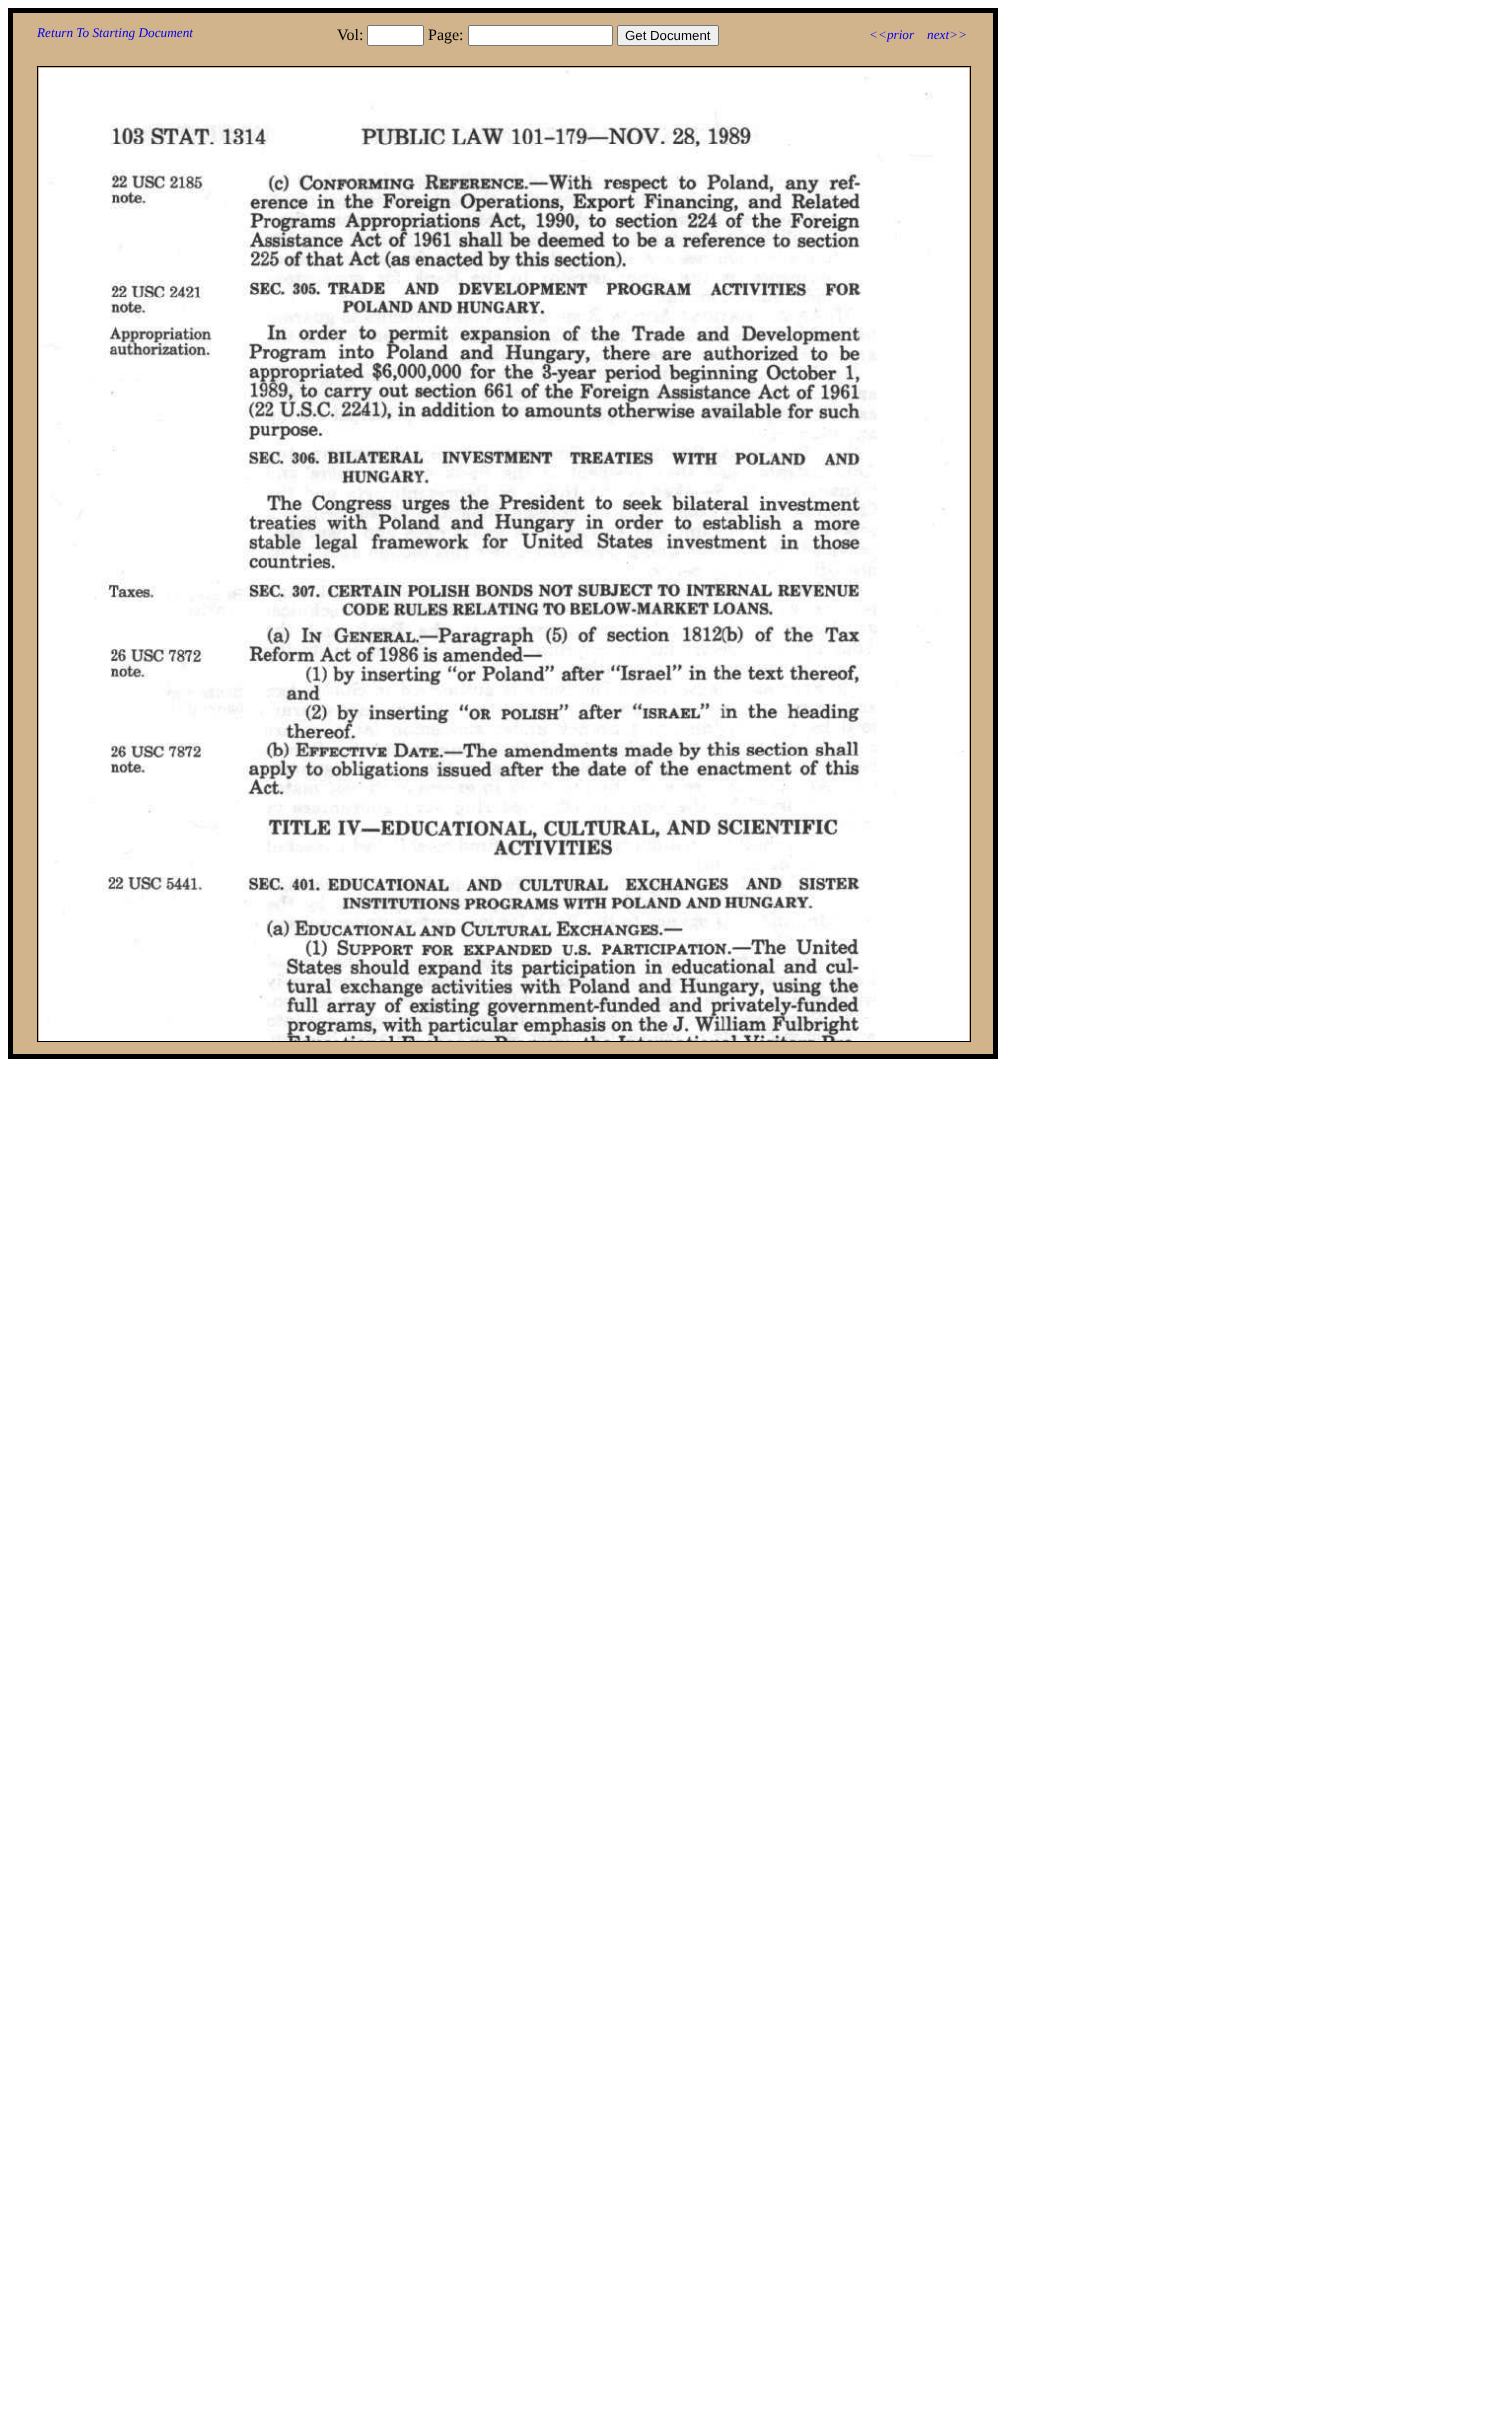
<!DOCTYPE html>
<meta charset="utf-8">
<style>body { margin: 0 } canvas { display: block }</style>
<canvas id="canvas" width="1494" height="2410"></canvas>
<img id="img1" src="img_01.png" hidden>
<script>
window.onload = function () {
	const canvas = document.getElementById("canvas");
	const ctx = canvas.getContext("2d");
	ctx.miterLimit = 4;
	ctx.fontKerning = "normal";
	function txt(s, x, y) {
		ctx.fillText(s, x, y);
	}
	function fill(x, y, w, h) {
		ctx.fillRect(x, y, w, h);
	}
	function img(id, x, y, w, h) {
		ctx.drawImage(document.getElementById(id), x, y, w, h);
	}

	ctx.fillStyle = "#FFFFFF";
	fill(0, 0, 1494, 2410);
	ctx.fillStyle = "#D2B48C";
	ctx.beginPath();
	ctx.rect(10.5, 10.5, 985, 1046);
	ctx.fill();
	ctx.strokeStyle = "#000000";
	ctx.lineWidth = 5;
	ctx.stroke();
	ctx.fillStyle = "#FFFFFF";
	ctx.beginPath();
	ctx.roundRect(367.5, 25.5, 56, 20, 1.5);
	ctx.fill();
	ctx.strokeStyle = "#767676";
	ctx.lineWidth = 1;
	ctx.stroke();
	ctx.beginPath();
	ctx.roundRect(468.5, 25.5, 144, 20, 1.5);
	ctx.fill();
	ctx.stroke();
	ctx.fillStyle = "#EFEFEF";
	ctx.beginPath();
	ctx.roundRect(617.5, 25.5, 101, 20, 1.5);
	ctx.fill();
	ctx.stroke();
	ctx.strokeStyle = "#000000";
	ctx.strokeRect(37.5, 66.5, 933, 975);
	img("img1", 39, 68, 930, 973);
	ctx.font = "italic 13.25px Liberation Serif";
	ctx.fillStyle = "#0000EE";
	txt("Return To Starting Document", 37, 37);
	ctx.font = "16px Liberation Serif";
	ctx.fillStyle = "#000000";
	txt("Vol:", 337, 40);
	txt("Page:", 428, 40);
	ctx.font = "13.25px Liberation Sans";
	txt("Get Document", 625, 40);
	ctx.font = "italic 13.25px Liberation Serif";
	ctx.fillStyle = "#0000EE";
	txt("<<prior", 869, 39);
	txt("next>>", 927, 39);
};
</script>
